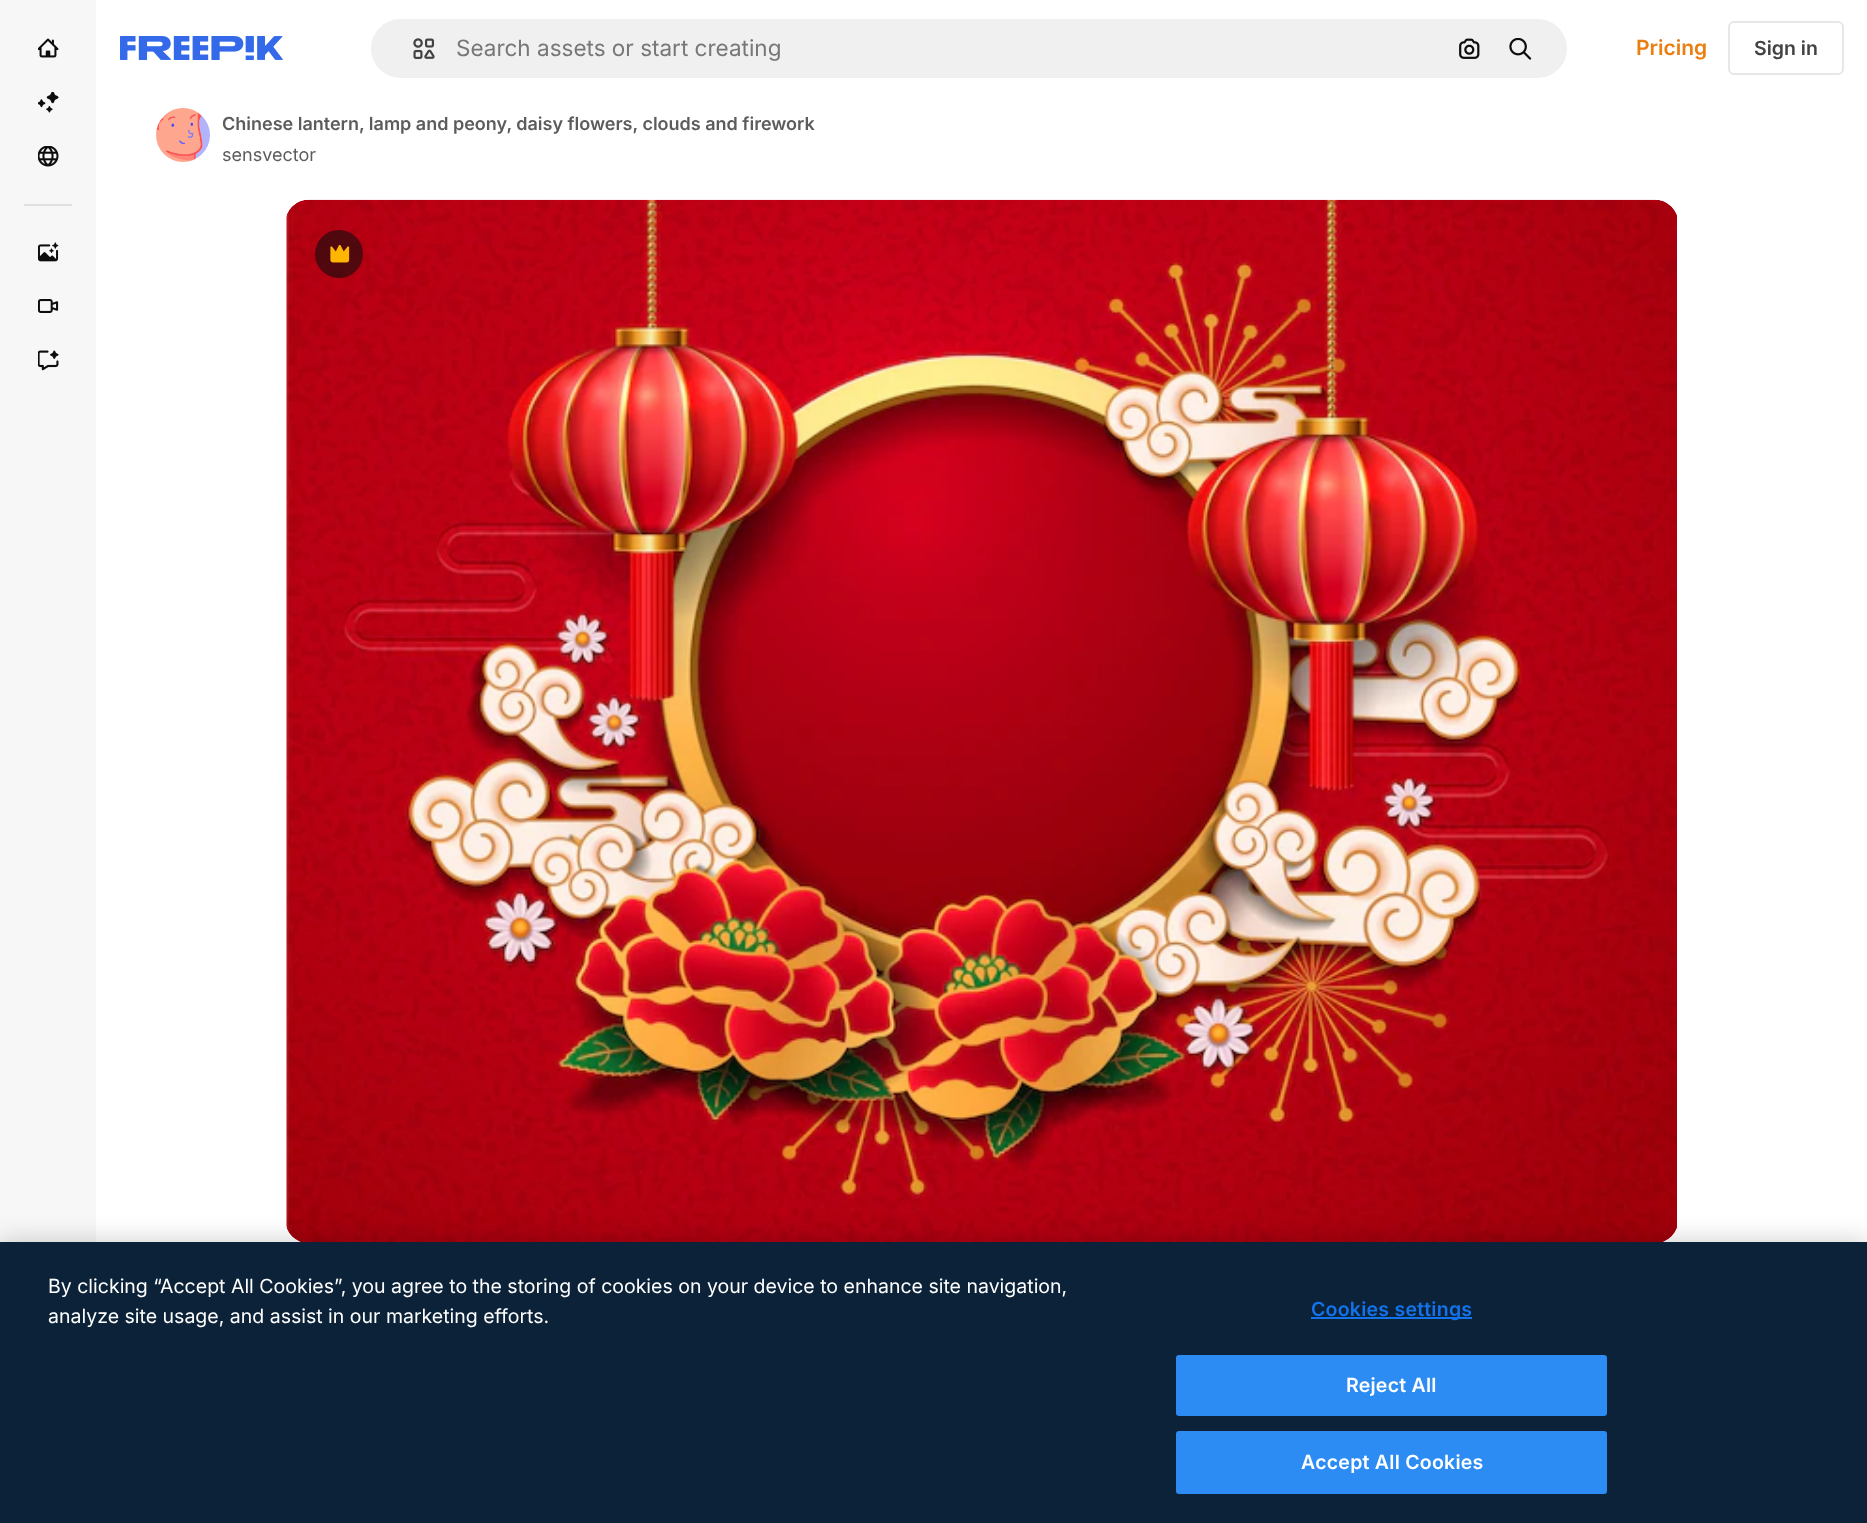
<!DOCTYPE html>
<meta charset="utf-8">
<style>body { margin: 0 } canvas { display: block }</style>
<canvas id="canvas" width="1867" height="1523"></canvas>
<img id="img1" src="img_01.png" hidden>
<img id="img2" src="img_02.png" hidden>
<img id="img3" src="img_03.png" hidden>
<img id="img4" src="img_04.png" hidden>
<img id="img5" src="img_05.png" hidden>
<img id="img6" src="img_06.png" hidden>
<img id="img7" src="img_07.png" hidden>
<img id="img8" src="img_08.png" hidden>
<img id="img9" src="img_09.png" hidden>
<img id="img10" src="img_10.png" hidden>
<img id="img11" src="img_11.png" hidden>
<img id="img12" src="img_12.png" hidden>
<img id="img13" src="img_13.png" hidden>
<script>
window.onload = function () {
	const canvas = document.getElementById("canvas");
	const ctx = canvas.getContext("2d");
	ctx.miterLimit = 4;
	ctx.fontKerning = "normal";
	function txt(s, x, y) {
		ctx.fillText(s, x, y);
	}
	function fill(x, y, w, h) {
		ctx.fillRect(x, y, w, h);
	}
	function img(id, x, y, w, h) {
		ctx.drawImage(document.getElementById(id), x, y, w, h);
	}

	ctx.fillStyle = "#FFFFFF";
	fill(0, 0, 1867, 1523);
	ctx.fillStyle = "#F7F7F7";
	fill(0, 0, 96, 1242);
	img("img1", 38, 38, 21, 20);
	img("img2", 38, 92, 21, 21);
	img("img3", 38, 146, 21, 21);
	ctx.fillStyle = "#E0E0E0";
	fill(24, 204, 48, 2);
	img("img4", 38, 242, 21, 20);
	img("img5", 38, 299, 21, 14);
	img("img6", 38, 350, 21, 21);
	img("img7", 120, 36, 163, 24);
	ctx.fillStyle = "#F0F0F0";
	ctx.beginPath();
	ctx.roundRect(370, 18, 1198, 61, 30.5);
	ctx.fill();
	ctx.strokeStyle = "#FFFFFF";
	ctx.lineWidth = 2;
	ctx.stroke();
	img("img8", 413, 38, 22, 21);
	img("img9", 1459, 38, 21, 21);
	img("img10", 1509, 38, 23, 22);
	ctx.beginPath();
	ctx.roundRect(1729, 22, 114, 52, 5);
	ctx.strokeStyle = "#E7E7E7";
	ctx.stroke();
	img("img11", 156, 108, 54, 54);
	img("img12", 286, 199, 1391, 1043);
	ctx.fillStyle = "rgba(13, 13, 13, 0.6)";
	ctx.beginPath();
	ctx.arc(339, 254, 24, 0, Math.PI * 2);
	ctx.fill();
	img("img13", 330, 245, 20, 18);
	ctx.fillStyle = "rgba(0, 0, 0, 0.2)";
	ctx.filter = "blur(13.5px)";
	ctx.beginPath();
	ctx.rect(0, 1242, 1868, 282);
	ctx.fill();
	ctx.filter = "none";
	ctx.fillStyle = "#0B2239";
	fill(0, 1242, 1867, 281);
	ctx.fillStyle = "#1273EB";
	fill(1311, 1317, 161, 2);
	ctx.fillStyle = "#2C8CF4";
	ctx.beginPath();
	ctx.roundRect(1177, 1356, 429, 59, 2);
	ctx.fill();
	ctx.strokeStyle = "#2C8CF4";
	ctx.stroke();
	ctx.beginPath();
	ctx.roundRect(1177, 1432, 429, 61, 2);
	ctx.fill();
	ctx.stroke();
	ctx.font = "22.5px Inter";
	ctx.fillStyle = "#777777";
	txt("Search assets or start creating", 456, 56);
	ctx.font = "600 21px Inter";
	ctx.fillStyle = "#EA7E11";
	txt("Pricing", 1636, 55);
	ctx.font = "600 19.5px Inter";
	ctx.fillStyle = "#424242";
	txt("Sign in", 1754, 55);
	ctx.font = "600 18px Inter";
	ctx.fillStyle = "#5C5C5C";
	txt("Chinese lantern, lamp and peony, daisy flowers, clouds and firework", 222, 130);
	ctx.font = "18px Inter";
	txt("sensvector", 222, 161);
	ctx.font = "19.5px Inter";
	ctx.fillStyle = "#FFFFFF";
	txt("By clicking “Accept All Cookies”, you agree to the storing of cookies on your device to enhance site navigation,", 48, 1293);
	txt("analyze site usage, and assist in our marketing efforts.", 48, 1323);
	ctx.letterSpacing = "0.25px";
	ctx.font = "600 19.5px Inter";
	ctx.fillStyle = "#1273EB";
	txt("Cookies settings", 1311, 1316);
	ctx.fillStyle = "#FFFFFF";
	txt("Reject All", 1346, 1392);
	txt("Accept All Cookies", 1301, 1469);
};
</script>
